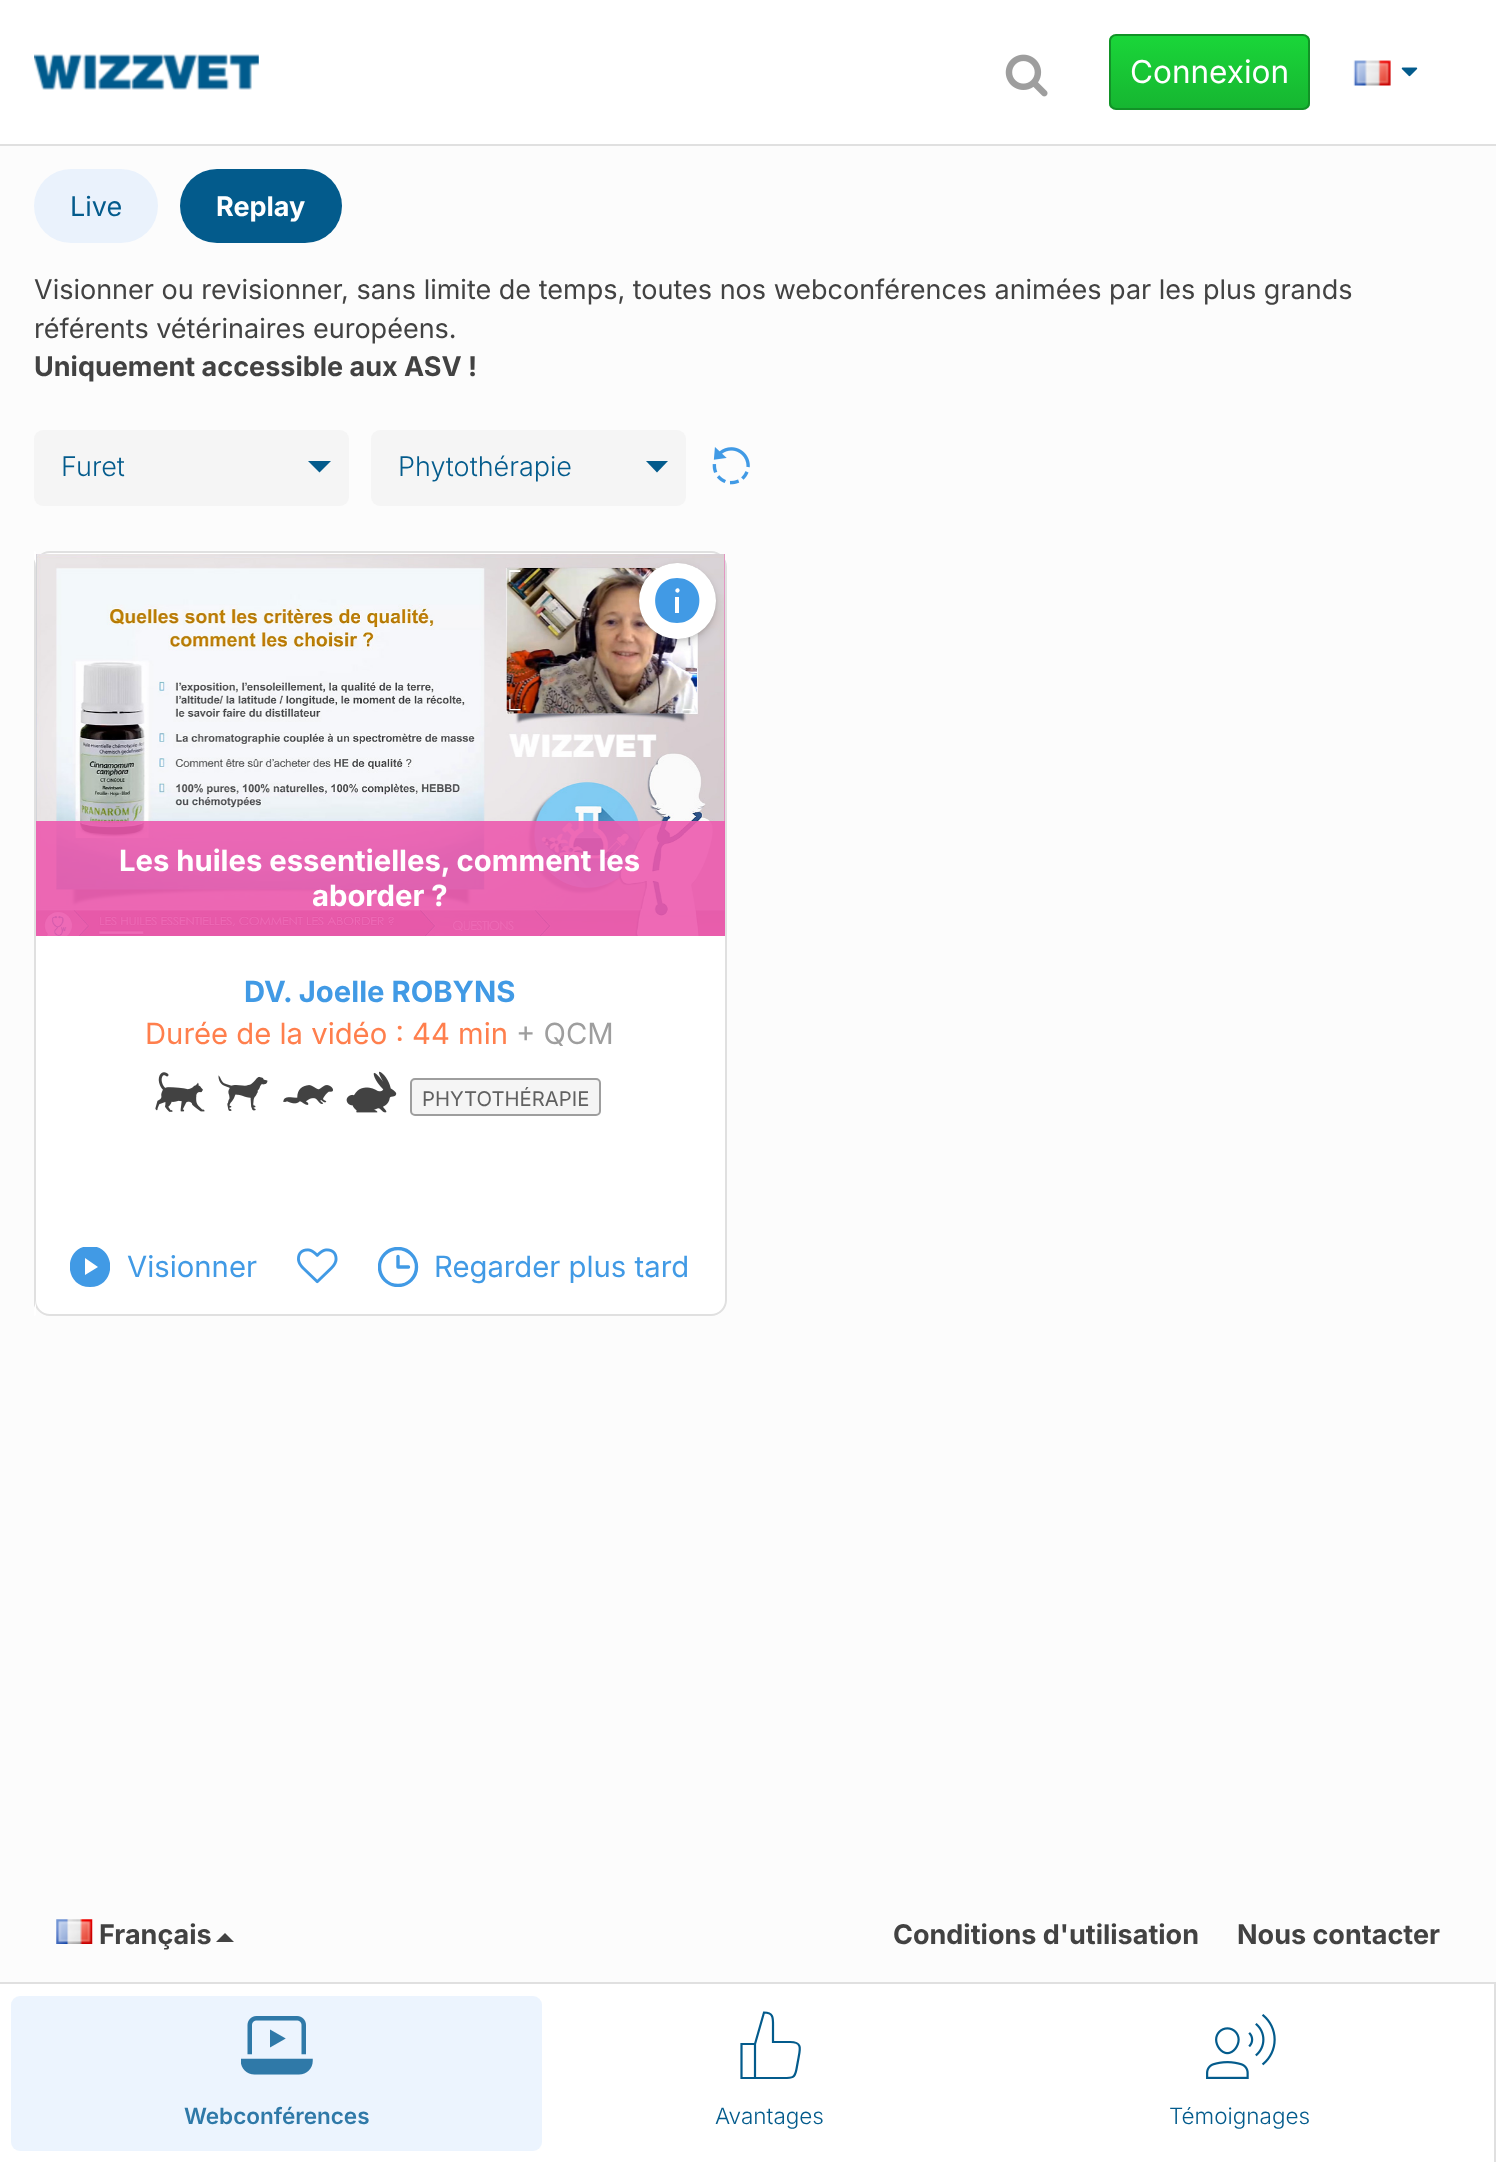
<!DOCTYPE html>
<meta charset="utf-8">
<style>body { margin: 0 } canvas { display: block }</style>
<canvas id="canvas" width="1496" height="2162"></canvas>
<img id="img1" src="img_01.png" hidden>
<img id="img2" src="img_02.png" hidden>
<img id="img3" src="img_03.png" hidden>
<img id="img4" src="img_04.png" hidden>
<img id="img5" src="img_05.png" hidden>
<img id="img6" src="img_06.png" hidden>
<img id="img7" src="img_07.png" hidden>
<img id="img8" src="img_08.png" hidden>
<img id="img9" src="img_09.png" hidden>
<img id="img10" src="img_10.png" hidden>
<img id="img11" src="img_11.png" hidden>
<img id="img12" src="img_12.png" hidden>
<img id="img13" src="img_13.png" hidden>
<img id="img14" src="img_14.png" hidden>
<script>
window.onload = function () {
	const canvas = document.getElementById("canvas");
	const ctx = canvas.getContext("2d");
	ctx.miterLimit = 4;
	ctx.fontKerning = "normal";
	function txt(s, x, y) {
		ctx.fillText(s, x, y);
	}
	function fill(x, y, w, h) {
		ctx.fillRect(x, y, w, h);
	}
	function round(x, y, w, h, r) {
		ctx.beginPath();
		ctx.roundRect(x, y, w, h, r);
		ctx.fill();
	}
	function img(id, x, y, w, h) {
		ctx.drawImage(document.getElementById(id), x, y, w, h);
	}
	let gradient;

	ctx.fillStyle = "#FCFCFC";
	fill(0, 0, 1496, 2162);
	ctx.fillStyle = "#FFFFFF";
	fill(0, 0, 1496, 144);
	ctx.fillStyle = "#E0E0E0";
	fill(0, 144, 1496, 2);
	img("img1", 34, 54, 225, 36);
	img("img2", 1005, 54, 43, 43);
	ctx.save();
	ctx.beginPath();
	ctx.roundRect(1109, 34, 201, 76, 7);
	ctx.clip();
	gradient = ctx.createLinearGradient(1209, 36, 1209, 108);
	gradient.addColorStop(0, "#1AD639");
	gradient.addColorStop(1, "#16B631");
	ctx.fillStyle = gradient;
	fill(1109, 36, 201, 72);
	ctx.restore();
	ctx.beginPath();
	ctx.roundRect(1110, 35, 199, 74, 6);
	ctx.strokeStyle = "#129227";
	ctx.lineWidth = 2;
	ctx.stroke();
	img("img3", 1353, 60, 38, 26);
	img("img4", 1401, 67, 17, 10);
	ctx.fillStyle = "#EAF2FC";
	round(34, 169, 124, 74, 37);
	ctx.fillStyle = "#035B8C";
	round(180, 169, 162, 74, 37);
	ctx.fillStyle = "#F5F5F5";
	round(34, 430, 315, 76, 9);
	ctx.fillStyle = "#035B8C";
	ctx.beginPath();
	ctx.moveTo(308, 461);
	ctx.lineTo(331, 461);
	ctx.lineTo(319.5, 472.5);
	ctx.closePath();
	ctx.fill();
	ctx.fillStyle = "#F5F5F5";
	round(371, 430, 315, 76, 9);
	ctx.fillStyle = "#035B8C";
	ctx.beginPath();
	ctx.moveTo(646, 461);
	ctx.lineTo(668, 461);
	ctx.lineTo(657, 472.5);
	ctx.closePath();
	ctx.fill();
	img("img5", 712, 447, 38, 38);
	ctx.fillStyle = "#FFFFFF";
	ctx.beginPath();
	ctx.roundRect(35, 552, 691, 763, 15);
	ctx.fill();
	ctx.strokeStyle = "#E0E0E0";
	ctx.stroke();
	ctx.beginPath();
	ctx.roundRect(34, 551, 2, 765, [0, 16, 16, 0]);
	ctx.fill();
	ctx.save();
	ctx.beginPath();
	ctx.rect(34, 551, 693, 833);
	ctx.clip();
	ctx.beginPath();
	ctx.roundRect(-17, 552, 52, 763, 15);
	ctx.stroke();
	ctx.restore();
	ctx.fillStyle = "#EC5AAE";
	fill(724, 554, 1, 382);
	img("img6", 36, 554, 689, 382);
	ctx.fillStyle = "rgba(0, 0, 0, 0.13)";
	ctx.filter = "blur(4.5px)";
	ctx.beginPath();
	ctx.roundRect(639, 567, 77, 77, 38.5);
	ctx.fill();
	ctx.filter = "none";
	ctx.fillStyle = "rgba(0, 0, 0, 0.09)";
	ctx.filter = "blur(1.5px)";
	ctx.beginPath();
	ctx.roundRect(639, 565, 77, 76, 38);
	ctx.fill();
	ctx.filter = "none";
	ctx.fillStyle = "rgba(0, 0, 0, 0.07)";
	ctx.filter = "blur(0.5px)";
	ctx.beginPath();
	ctx.roundRect(639, 563, 77, 76, 38);
	ctx.fill();
	ctx.filter = "none";
	ctx.fillStyle = "rgba(0, 0, 0, 0.05)";
	ctx.filter = "blur(0.5px)";
	ctx.beginPath();
	ctx.roundRect(639, 563, 77, 76, 38);
	ctx.fill();
	ctx.filter = "none";
	ctx.fillStyle = "#FFFFFF";
	round(639, 563, 77, 76, 38);
	ctx.fillStyle = "#419AE5";
	ctx.beginPath();
	ctx.moveTo(677, 578);
	ctx.bezierCurveTo(648, 578, 648, 623, 677, 623);
	ctx.bezierCurveTo(707, 623, 707, 578, 677, 578);
	ctx.closePath();
	ctx.moveTo(679, 613);
	ctx.lineTo(675, 613);
	ctx.lineTo(675, 597);
	ctx.lineTo(679, 597);
	ctx.closePath();
	ctx.moveTo(679, 592);
	ctx.bezierCurveTo(677, 594, 674, 591, 676, 589);
	ctx.bezierCurveTo(678, 587, 681, 590, 679, 592);
	ctx.closePath();
	ctx.fill();
	ctx.fillStyle = "rgba(236, 90, 174, 0.9)";
	fill(36, 821, 689, 115);
	img("img7", 155, 1072, 50, 40);
	img("img8", 218, 1075, 50, 36);
	img("img9", 283, 1085, 50, 20);
	img("img10", 346, 1071, 51, 42);
	ctx.fillStyle = "#F5F5F5";
	ctx.beginPath();
	ctx.roundRect(411, 1079, 189, 36, 4);
	ctx.fill();
	ctx.strokeStyle = "#9E9E9E";
	ctx.stroke();
	ctx.save();
	ctx.beginPath();
	ctx.rect(70, 1247, 40, 40);
	ctx.clip();
	ctx.fillStyle = "#419AE5";
	ctx.beginPath();
	ctx.moveTo(90, 1246);
	ctx.bezierCurveTo(63, 1246, 63, 1287, 90, 1287);
	ctx.bezierCurveTo(117, 1287, 117, 1246, 90, 1246);
	ctx.closePath();
	ctx.moveTo(85, 1275);
	ctx.lineTo(85, 1258);
	ctx.lineTo(98, 1267);
	ctx.closePath();
	ctx.fill();
	ctx.restore();
	img("img11", 297, 1248, 41, 36);
	ctx.save();
	ctx.beginPath();
	ctx.rect(378, 1247, 41, 40);
	ctx.clip();
	ctx.beginPath();
	ctx.arc(398, 1267, 18.5, 0, Math.PI * 2);
	ctx.strokeStyle = "#419AE5";
	ctx.lineWidth = 3.4;
	ctx.stroke();
	ctx.restore();
	ctx.beginPath();
	ctx.moveTo(398, 1256.5);
	ctx.lineTo(398, 1267);
	ctx.lineTo(408.5, 1267);
	ctx.strokeStyle = "#419AE5";
	ctx.lineWidth = 3.4;
	ctx.lineCap = "round";
	ctx.lineJoin = "round";
	ctx.stroke();
	ctx.fillStyle = "#FFFFFF";
	fill(0, 1984, 1494, 178);
	ctx.fillStyle = "#E0E0E0";
	fill(0, 1982, 1496, 2);
	fill(1494, 1982, 2, 180);
	img("img12", 241, 2016, 72, 59);
	ctx.beginPath();
	ctx.moveTo(755, 2078);
	ctx.lineTo(741.5, 2078);
	ctx.lineTo(741.5, 2044);
	ctx.lineTo(755, 2044);
	ctx.strokeStyle = "#035B8C";
	ctx.lineWidth = 2.2;
	ctx.lineCap = "butt";
	ctx.lineJoin = "miter";
	ctx.stroke();
	ctx.beginPath();
	ctx.moveTo(755, 2044);
	ctx.lineTo(764, 2012.5);
	ctx.bezierCurveTo(774, 2012.5, 773, 2018.5, 773, 2027);
	ctx.lineTo(773, 2042);
	ctx.lineTo(790, 2042);
	ctx.bezierCurveTo(802, 2042, 800.5, 2048, 798.5, 2058);
	ctx.lineTo(796.5, 2069);
	ctx.bezierCurveTo(795, 2078, 792.5, 2078, 783.5, 2078);
	ctx.lineTo(755, 2078);
	ctx.closePath();
	ctx.lineCap = "square";
	ctx.stroke();
	img("img13", 1206, 2014, 70, 65);
	img("img14", 56, 1919, 37, 25);
	ctx.fillStyle = "#424242";
	ctx.beginPath();
	ctx.moveTo(234, 1942);
	ctx.lineTo(216, 1942);
	ctx.lineTo(225, 1933);
	ctx.closePath();
	ctx.fill();
	ctx.font = "31.5px Inter";
	ctx.fillStyle = "#FFFFFF";
	txt("Connexion", 1130, 83);
	ctx.font = "27px Inter";
	ctx.fillStyle = "#035B8C";
	txt("Live", 70, 216);
	ctx.font = "bold 27px Inter";
	ctx.fillStyle = "#FFFFFF";
	txt("Replay", 216, 216);
	ctx.font = "27px Inter";
	ctx.fillStyle = "#424242";
	txt("Visionner ou revisionner, sans limite de temps, toutes nos webconférences animées par les plus grands", 34, 299);
	txt("référents vétérinaires européens.", 34, 338);
	ctx.font = "bold 27px Inter";
	txt("Uniquement accessible aux ASV !", 34, 376);
	ctx.font = "300 27px Inter";
	ctx.fillStyle = "#035B8C";
	txt("Furet", 61, 476);
	txt("Phytothérapie", 398, 476);
	ctx.font = "bold 29.25px Inter";
	ctx.fillStyle = "#FFFFFF";
	txt("Les huiles essentielles, comment les", 119, 871);
	txt("aborder ?", 312, 906);
	ctx.fillStyle = "#419AE5";
	txt("DV. Joelle ROBYNS", 244, 1002);
	ctx.font = "29.25px Inter";
	ctx.fillStyle = "#FF7F4D";
	txt("Durée de la vidéo : 44 min", 145, 1044);
	ctx.fillStyle = "#9E9E9E";
	txt("+ QCM", 516, 1044);
	ctx.font = "20.25px Inter";
	ctx.fillStyle = "#616161";
	txt("PHYTOTHÉRAPIE", 422, 1106);
	ctx.font = "29.25px Inter";
	ctx.fillStyle = "#419AE5";
	txt("Visionner", 127, 1277);
	txt("Regarder plus tard", 434, 1277);
	ctx.font = "600 22.5px Inter";
	ctx.fillStyle = "#035B8C";
	txt("Webconférences", 184, 2124);
	ctx.fillStyle = "rgba(179, 212, 252, 0.25)";
	round(11, 1996, 531, 155, 9);
	ctx.font = "300 22.5px Inter";
	ctx.fillStyle = "#035B8C";
	txt("Avantages", 715, 2124);
	txt("Témoignages", 1169, 2124);
	ctx.font = "bold 27px Inter";
	ctx.fillStyle = "#424242";
	txt("Français", 99, 1944);
	txt("Conditions d'utilisation", 893, 1944);
	txt("Nous contacter", 1237, 1944);
};
</script>
